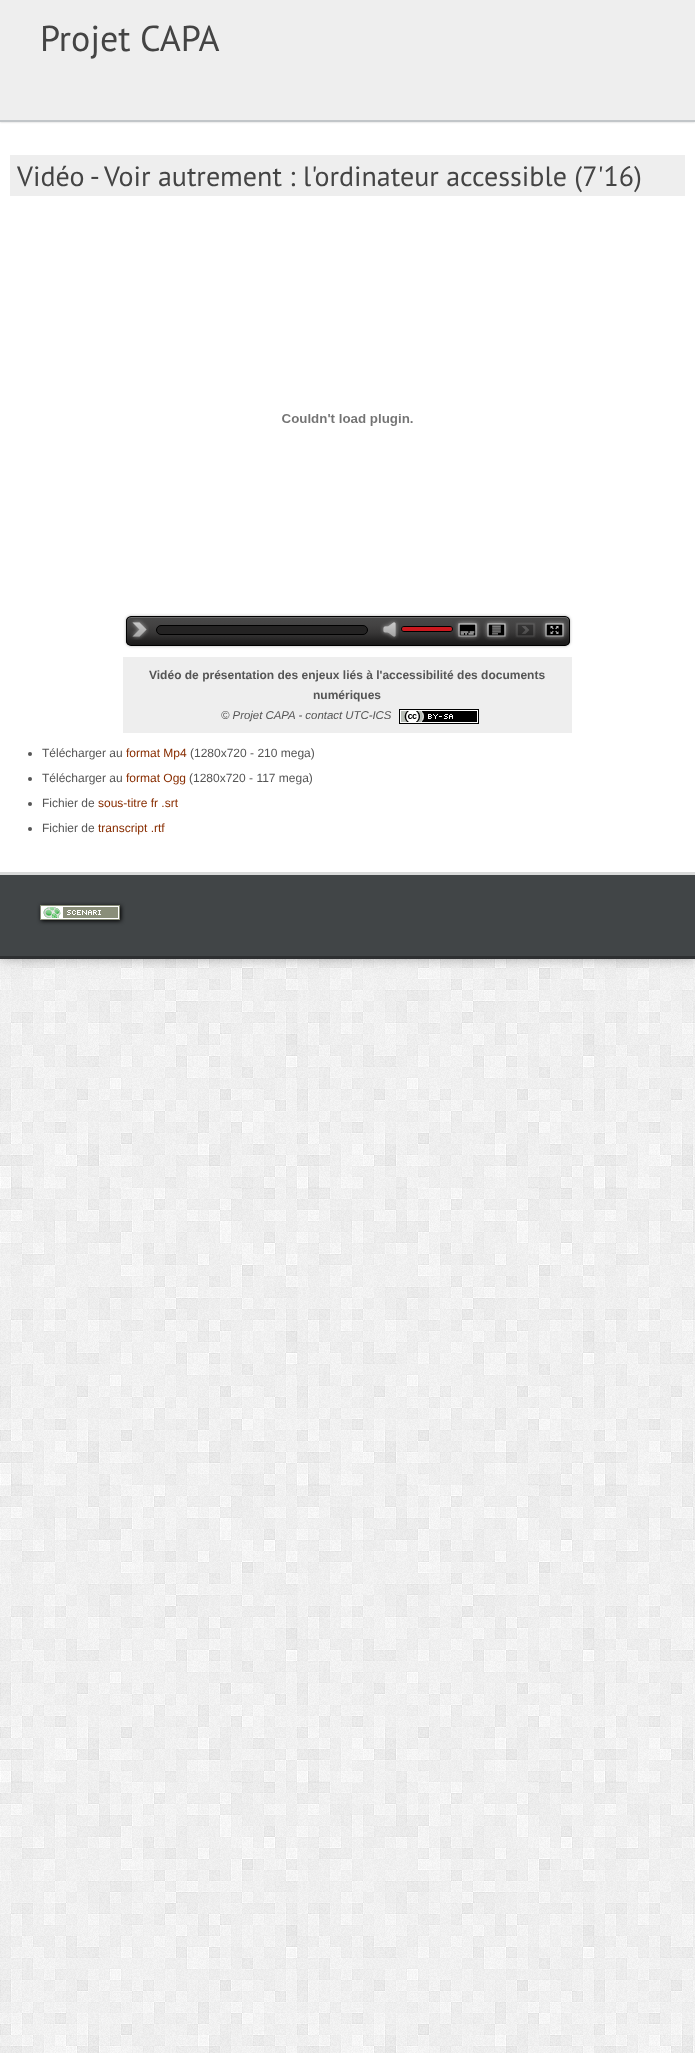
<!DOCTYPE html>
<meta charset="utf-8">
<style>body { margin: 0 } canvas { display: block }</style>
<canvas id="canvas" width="695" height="2053"></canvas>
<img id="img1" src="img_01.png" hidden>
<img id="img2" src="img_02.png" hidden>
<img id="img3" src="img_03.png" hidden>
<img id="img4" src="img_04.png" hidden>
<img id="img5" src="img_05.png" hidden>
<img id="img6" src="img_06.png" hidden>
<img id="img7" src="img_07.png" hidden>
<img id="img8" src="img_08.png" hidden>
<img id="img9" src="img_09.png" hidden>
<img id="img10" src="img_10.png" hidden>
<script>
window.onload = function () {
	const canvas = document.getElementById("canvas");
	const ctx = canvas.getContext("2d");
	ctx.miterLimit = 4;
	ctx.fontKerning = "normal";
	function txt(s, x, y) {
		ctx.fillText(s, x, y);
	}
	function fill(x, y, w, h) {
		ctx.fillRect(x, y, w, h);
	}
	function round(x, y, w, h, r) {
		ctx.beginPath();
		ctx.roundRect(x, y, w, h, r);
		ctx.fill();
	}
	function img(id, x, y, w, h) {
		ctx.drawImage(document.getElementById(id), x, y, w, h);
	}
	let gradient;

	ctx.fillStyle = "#FFFFFF";
	fill(0, 0, 695, 2053);
	img("img1", 0, 959, 695, 1094);
	ctx.fillStyle = "rgba(0, 0, 0, 0.3)";
	ctx.filter = "blur(6px)";
	ctx.beginPath();
	ctx.rect(0, 0, 695, 959);
	ctx.fill();
	ctx.filter = "none";
	ctx.fillStyle = "#FFFFFF";
	fill(0, 122, 695, 750);
	ctx.fillStyle = "rgba(0, 0, 0, 0.2)";
	ctx.filter = "blur(1px)";
	ctx.beginPath();
	ctx.rect(0, 0, 695, 122);
	ctx.fill();
	ctx.filter = "none";
	ctx.fillStyle = "#EEEEEE";
	fill(0, 0, 695, 120);
	ctx.fillStyle = "#C2C6C9";
	fill(0, 120, 695, 2);
	ctx.fillStyle = "#EEEEEE";
	fill(10, 155, 675, 41);
	img("img2", 282, 414, 131, 12);
	ctx.fillStyle = "rgba(0, 0, 0, 0.3)";
	ctx.filter = "blur(1.5px)";
	ctx.beginPath();
	ctx.roundRect(126, 616, 444, 30, 5);
	ctx.fill();
	ctx.filter = "none";
	ctx.save();
	ctx.beginPath();
	ctx.roundRect(126, 616, 444, 30, 5);
	ctx.clip();
	gradient = ctx.createLinearGradient(348, 617, 348, 645);
	gradient.addColorStop(0, "#494949");
	gradient.addColorStop(0.31, "#434242");
	gradient.addColorStop(0.55, "#393838");
	gradient.addColorStop(0.83, "#242323");
	gradient.addColorStop(1, "#1B1A1A");
	gradient.addColorStop(1, "#161515");
	gradient.addColorStop(1, "#0B0B0B");
	ctx.fillStyle = gradient;
	fill(126, 617, 444, 28);
	ctx.restore();
	ctx.fillStyle = "#6D6D6D";
	ctx.beginPath();
	ctx.moveTo(131, 618);
	ctx.lineTo(565, 618);
	ctx.bezierCurveTo(567, 618, 569, 620, 569, 622);
	ctx.bezierCurveTo(569, 619, 568, 617, 565, 617);
	ctx.lineTo(131, 617);
	ctx.lineTo(129, 618);
	ctx.lineTo(128, 619);
	ctx.lineTo(127, 622);
	ctx.bezierCurveTo(127, 620, 129, 618, 131, 618);
	ctx.closePath();
	ctx.fill();
	ctx.beginPath();
	ctx.roundRect(126.5, 616.5, 443, 29, 4.5);
	ctx.strokeStyle = "#000000";
	ctx.stroke();
	img("img3", 130, 619, 19, 21);
	ctx.fillStyle = "#242323";
	ctx.beginPath();
	ctx.roundRect(156.5, 625.5, 211, 9, 4.5);
	ctx.fill();
	ctx.stroke();
	img("img4", 380, 619, 19, 21);
	ctx.beginPath();
	ctx.roundRect(401.5, 626.5, 51, 5, 2.5);
	ctx.stroke();
	ctx.fillStyle = "#CC181E";
	round(402, 627, 50, 4, 2);
	img("img5", 454, 619, 27, 22);
	img("img6", 483, 619, 27, 22);
	img("img7", 515, 622, 21, 16);
	img("img8", 541, 619, 27, 22);
	ctx.fillStyle = "#EEEEEE";
	fill(123, 657, 449, 76);
	img("img9", 399, 709, 80, 15);
	ctx.fillStyle = "#555555";
	ctx.beginPath();
	ctx.arc(30, 754, 2, 0, Math.PI * 2);
	ctx.fill();
	ctx.beginPath();
	ctx.arc(30, 779, 2, 0, Math.PI * 2);
	ctx.fill();
	ctx.beginPath();
	ctx.arc(30, 804, 2, 0, Math.PI * 2);
	ctx.fill();
	ctx.beginPath();
	ctx.arc(30, 829, 2, 0, Math.PI * 2);
	ctx.fill();
	ctx.fillStyle = "#414547";
	fill(0, 875, 695, 81);
	ctx.fillStyle = "#D9DADA";
	fill(0, 872, 695, 3);
	ctx.fillStyle = "#2E3032";
	fill(0, 956, 695, 3);
	ctx.fillStyle = "#000000";
	ctx.filter = "blur(2px)";
	ctx.beginPath();
	ctx.rect(41, 906, 80, 15);
	ctx.fill();
	ctx.filter = "none";
	img("img10", 40, 905, 80, 15);
	ctx.font = "36px PT Sans";
	ctx.fillStyle = "#444444";
	txt("Projet CAPA", 40, 51);
	ctx.font = "28px PT Sans";
	txt("Vidéo - Voir autrement : l'ordinateur accessible (7'16)", 17, 186);
	ctx.font = "bold 12px Liberation Sans";
	ctx.fillStyle = "#555555";
	txt("Vidéo de présentation des enjeux liés à l'accessibilité des documents", 149, 679);
	txt("numériques", 313, 699);
	ctx.font = "italic 11.4px Liberation Sans";
	txt("© Projet CAPA - contact UTC-ICS", 221, 719);
	ctx.font = "12px Liberation Sans";
	txt("Télécharger au", 42, 757);
	ctx.fillStyle = "#882D00";
	txt("format Mp4", 126, 757);
	ctx.fillStyle = "#555555";
	txt("(1280x720 - 210 mega)", 190, 757);
	txt("Télécharger au", 42, 782);
	ctx.fillStyle = "#882D00";
	txt("format Ogg", 126, 782);
	ctx.fillStyle = "#555555";
	txt("(1280x720 - 117 mega)", 189, 782);
	txt("Fichier de", 42, 807);
	ctx.fillStyle = "#882D00";
	txt("sous-titre fr .srt", 98, 807);
	ctx.fillStyle = "#555555";
	txt("Fichier de", 42, 832);
	ctx.fillStyle = "#882D00";
	txt("transcript .rtf", 98, 832);
};
</script>
